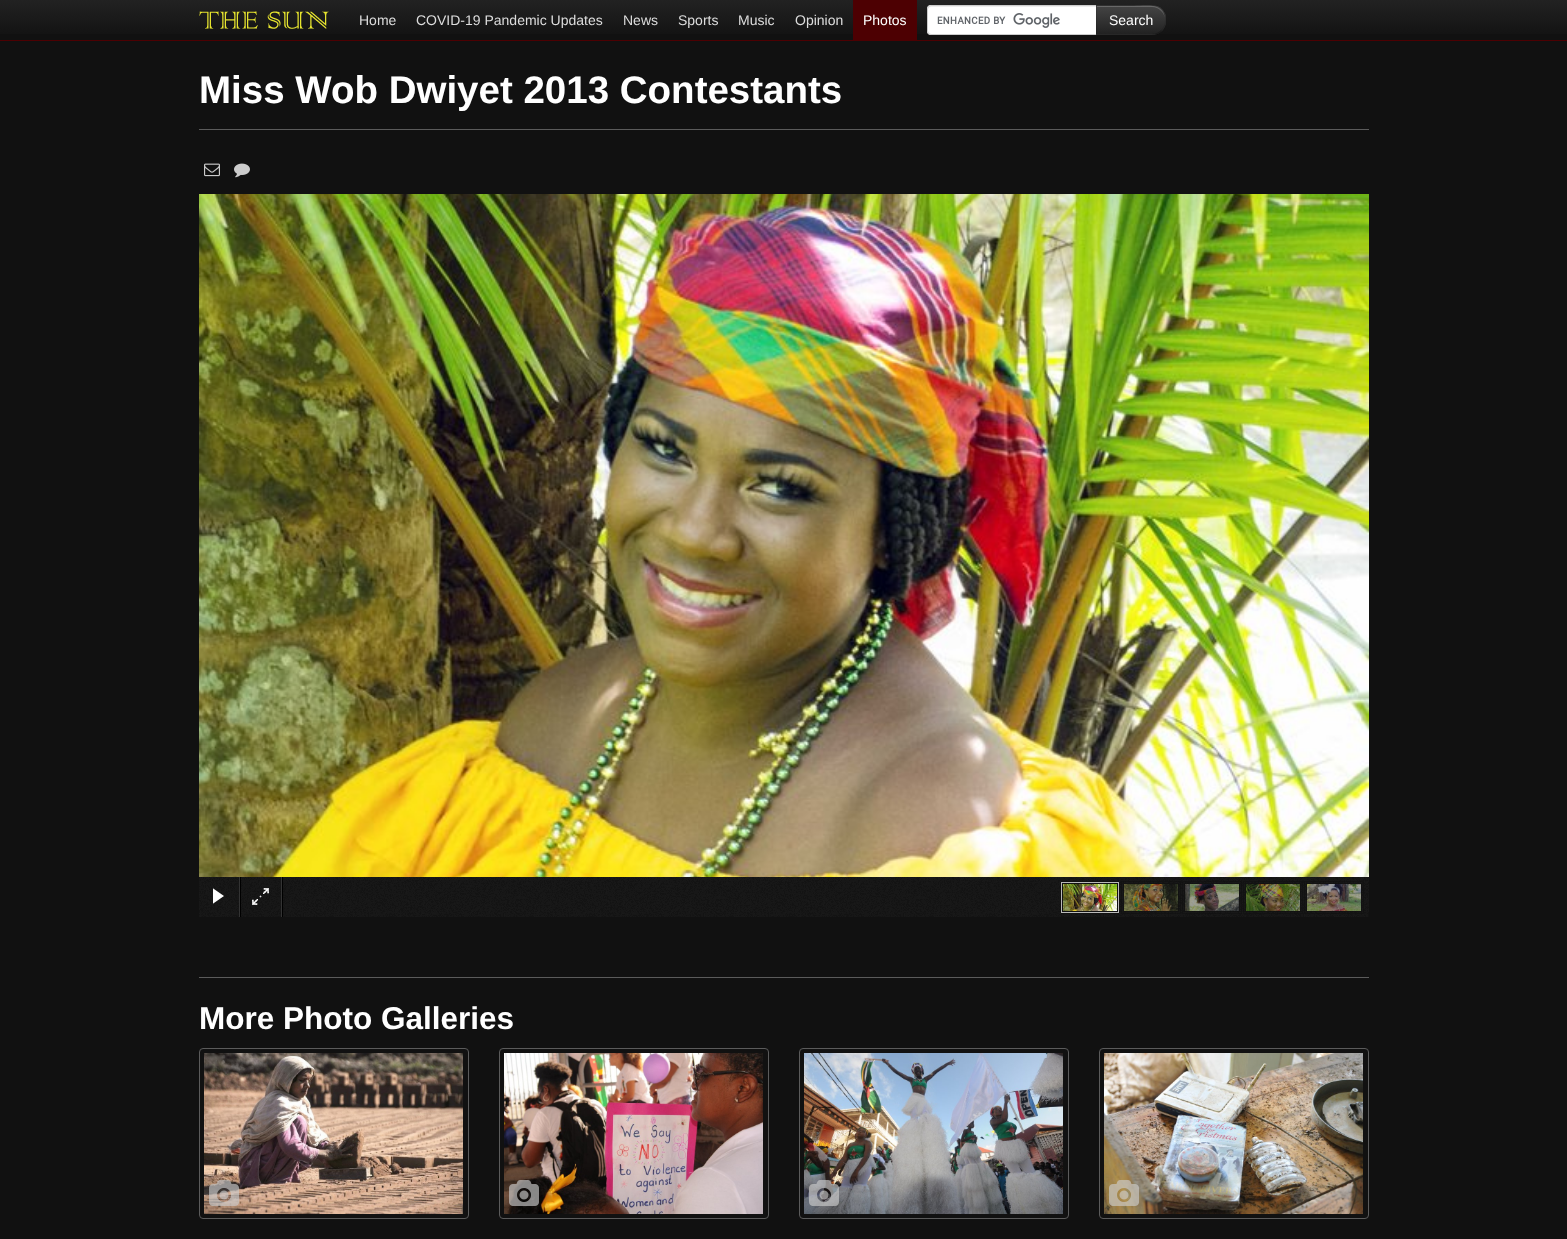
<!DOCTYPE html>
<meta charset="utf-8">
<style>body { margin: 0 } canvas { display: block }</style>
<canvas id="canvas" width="1567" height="1239"></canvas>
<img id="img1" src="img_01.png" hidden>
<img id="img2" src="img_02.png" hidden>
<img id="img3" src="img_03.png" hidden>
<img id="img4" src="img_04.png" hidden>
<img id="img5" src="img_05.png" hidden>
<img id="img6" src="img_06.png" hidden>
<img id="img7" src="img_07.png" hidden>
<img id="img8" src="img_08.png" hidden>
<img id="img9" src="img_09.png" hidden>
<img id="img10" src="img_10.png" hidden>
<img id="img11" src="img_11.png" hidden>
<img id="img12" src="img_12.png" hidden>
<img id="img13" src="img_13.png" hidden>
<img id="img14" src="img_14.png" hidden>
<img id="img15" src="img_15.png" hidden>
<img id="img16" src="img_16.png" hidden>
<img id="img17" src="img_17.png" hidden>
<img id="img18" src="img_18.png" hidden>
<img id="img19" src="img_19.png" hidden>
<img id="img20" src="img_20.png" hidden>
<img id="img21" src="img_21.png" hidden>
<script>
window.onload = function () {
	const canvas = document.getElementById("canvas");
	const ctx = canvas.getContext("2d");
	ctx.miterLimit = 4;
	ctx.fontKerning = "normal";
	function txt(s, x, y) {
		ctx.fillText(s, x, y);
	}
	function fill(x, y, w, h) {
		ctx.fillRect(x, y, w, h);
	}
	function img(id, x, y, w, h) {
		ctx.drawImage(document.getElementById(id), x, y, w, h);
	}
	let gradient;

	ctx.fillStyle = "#111111";
	fill(0, 0, 1567, 1239);
	gradient = ctx.createLinearGradient(784, 0, 784, 40);
	gradient.addColorStop(0, "#222222");
	gradient.addColorStop(1, "#111111");
	ctx.fillStyle = gradient;
	fill(0, 0, 1567, 34);
	ctx.fillStyle = "#4D0002";
	fill(0, 40, 1567, 1);
	img("img1", 199, 11, 130, 18);
	fill(853, 0, 64, 40);
	ctx.fillStyle = "#FFFFFF";
	ctx.beginPath();
	ctx.roundRect(927, 5, 170, 30, [4, 0, 0, 4]);
	ctx.fill();
	img("img2", 937, 13, 123, 15);
	ctx.fillStyle = "#ECECEC";
	ctx.beginPath();
	ctx.moveTo(931, 7);
	ctx.lineTo(1096, 7);
	ctx.lineTo(1096, 6);
	ctx.lineTo(930, 6);
	ctx.bezierCurveTo(928, 6, 928, 8, 928, 10);
	ctx.bezierCurveTo(928, 8, 929, 7, 931, 7);
	ctx.closePath();
	ctx.fill();
	ctx.beginPath();
	ctx.roundRect(927.5, 5.5, 169, 29, [3.5, 0, 0, 3.5]);
	ctx.strokeStyle = "#CCCCCC";
	ctx.stroke();
	ctx.fillStyle = "#363636";
	ctx.beginPath();
	ctx.roundRect(1096, 5, 70, 30, [0, 14, 14, 0]);
	ctx.fill();
	ctx.save();
	ctx.beginPath();
	ctx.roundRect(1096, 5, 70, 30, [0, 14, 14, 0]);
	ctx.clip();
	gradient = ctx.createLinearGradient(1131, 6, 1131, 34);
	gradient.addColorStop(0, "#444444");
	gradient.addColorStop(1, "#222222");
	ctx.fillStyle = gradient;
	fill(1096, 6, 70, 28);
	ctx.restore();
	ctx.fillStyle = "rgba(255, 255, 255, 0.2)";
	ctx.beginPath();
	ctx.moveTo(1097, 7);
	ctx.lineTo(1152, 7);
	ctx.bezierCurveTo(1159, 7, 1165, 13, 1165, 20);
	ctx.bezierCurveTo(1165, 2, 1146, 6, 1134, 6);
	ctx.lineTo(1097, 6);
	ctx.closePath();
	ctx.fill();
	ctx.fillStyle = "rgba(0, 0, 0, 0.1)";
	ctx.beginPath();
	ctx.moveTo(1096, 5);
	ctx.lineTo(1097, 6);
	ctx.lineTo(1152, 6);
	ctx.bezierCurveTo(1156, 6, 1159, 8, 1161, 10);
	ctx.lineTo(1162, 9);
	ctx.bezierCurveTo(1160, 6, 1156, 5, 1152, 5);
	ctx.closePath();
	ctx.fill();
	ctx.beginPath();
	ctx.moveTo(1166, 21);
	ctx.bezierCurveTo(1166, 16.5, 1165.5, 12.5, 1162, 9);
	ctx.lineTo(1161, 10);
	ctx.bezierCurveTo(1166.5, 15, 1166.5, 25, 1161, 30);
	ctx.lineTo(1162, 31);
	ctx.bezierCurveTo(1164.5, 28.5, 1166, 25, 1166, 21);
	ctx.closePath();
	ctx.fill();
	ctx.fillStyle = "rgba(0, 0, 0, 0.25)";
	ctx.beginPath();
	ctx.moveTo(1152, 35);
	ctx.bezierCurveTo(1156, 35, 1160, 34, 1162, 31);
	ctx.lineTo(1161, 30);
	ctx.bezierCurveTo(1159, 32, 1156, 34, 1152, 34);
	ctx.lineTo(1097, 34);
	ctx.lineTo(1096, 35);
	ctx.closePath();
	ctx.fill();
	ctx.fillStyle = "rgba(0, 0, 0, 0.1)";
	ctx.beginPath();
	ctx.moveTo(1096, 5);
	ctx.lineTo(1096, 35);
	ctx.lineTo(1097, 34);
	ctx.lineTo(1097, 6);
	ctx.closePath();
	ctx.fill();
	ctx.fillStyle = "#5B5B5B";
	fill(199, 129, 1170, 1);
	img("img3", 204, 163, 16, 14);
	img("img4", 234, 163, 16, 15);
	img("img5", 199, 194, 1170, 683);
	ctx.fillStyle = "#141414";
	fill(199, 877, 1170, 40);
	img("img6", 199, 877, 1170, 40);
	img("img7", 213, 888, 11, 16);
	ctx.fillStyle = "#333333";
	fill(239, 877, 1, 40);
	img("img8", 252, 888, 17, 17);
	fill(281, 877, 1, 40);
	ctx.save();
	ctx.beginPath();
	ctx.rect(199, 877, 1170, 40);
	ctx.clip();
	ctx.strokeStyle = "#000000";
	ctx.strokeRect(240.5, 876.5, 42, 41);
	ctx.restore();
	ctx.fillStyle = "rgba(255, 255, 255, 0.7)";
	ctx.beginPath();
	ctx.rect(1060.5, 881.5, 59, 32);
	ctx.fill();
	ctx.strokeStyle = "#111111";
	ctx.stroke();
	ctx.strokeRect(1062.5, 883.5, 55, 28);
	img("img9", 1063, 884, 54, 27);
	ctx.strokeStyle = "rgba(17, 17, 17, 0.6)";
	ctx.strokeRect(1121.5, 881.5, 59, 32);
	ctx.strokeRect(1123.5, 883.5, 55, 28);
	img("img10", 1124, 884, 54, 27);
	ctx.strokeRect(1182.5, 881.5, 59, 32);
	ctx.strokeRect(1184.5, 883.5, 55, 28);
	img("img11", 1185, 884, 54, 27);
	ctx.strokeRect(1243.5, 881.5, 59, 32);
	ctx.strokeRect(1245.5, 883.5, 55, 28);
	img("img12", 1246, 884, 54, 27);
	ctx.strokeRect(1304.5, 881.5, 59, 32);
	ctx.strokeRect(1306.5, 883.5, 55, 28);
	img("img13", 1307, 884, 54, 27);
	ctx.fillStyle = "#5B5B5B";
	fill(199, 977, 1170, 1);
	ctx.beginPath();
	ctx.roundRect(199.5, 1048.5, 269, 170, 3.5);
	ctx.strokeStyle = "#5B5B5B";
	ctx.stroke();
	img("img14", 204, 1053, 259, 161);
	img("img15", 209, 1180, 30, 26);
	ctx.beginPath();
	ctx.roundRect(499.5, 1048.5, 269, 170, 3.5);
	ctx.stroke();
	img("img16", 504, 1053, 259, 161);
	img("img17", 509, 1180, 30, 26);
	ctx.beginPath();
	ctx.roundRect(799.5, 1048.5, 269, 170, 3.5);
	ctx.stroke();
	img("img18", 804, 1053, 259, 161);
	img("img19", 809, 1180, 30, 26);
	ctx.beginPath();
	ctx.roundRect(1099.5, 1048.5, 269, 170, 3.5);
	ctx.stroke();
	img("img20", 1104, 1053, 259, 161);
	img("img21", 1109, 1180, 30, 26);
	ctx.font = "14px Liberation Sans";
	ctx.fillStyle = "#DDDDDD";
	txt("Home", 359, 25);
	txt("COVID-19 Pandemic Updates", 416, 25);
	txt("News", 623, 25);
	txt("Sports", 678, 25);
	txt("Music", 738, 25);
	txt("Opinion", 795, 25);
	ctx.fillStyle = "#FFFFFF";
	txt("Photos", 863, 25);
	txt("Search", 1109, 25);
	ctx.font = "bold 38.5px Liberation Sans";
	txt("Miss Wob Dwiyet 2013 Contestants", 199, 103);
	ctx.font = "bold 31.5px Liberation Sans";
	txt("More Photo Galleries", 199, 1029);
};
</script>
